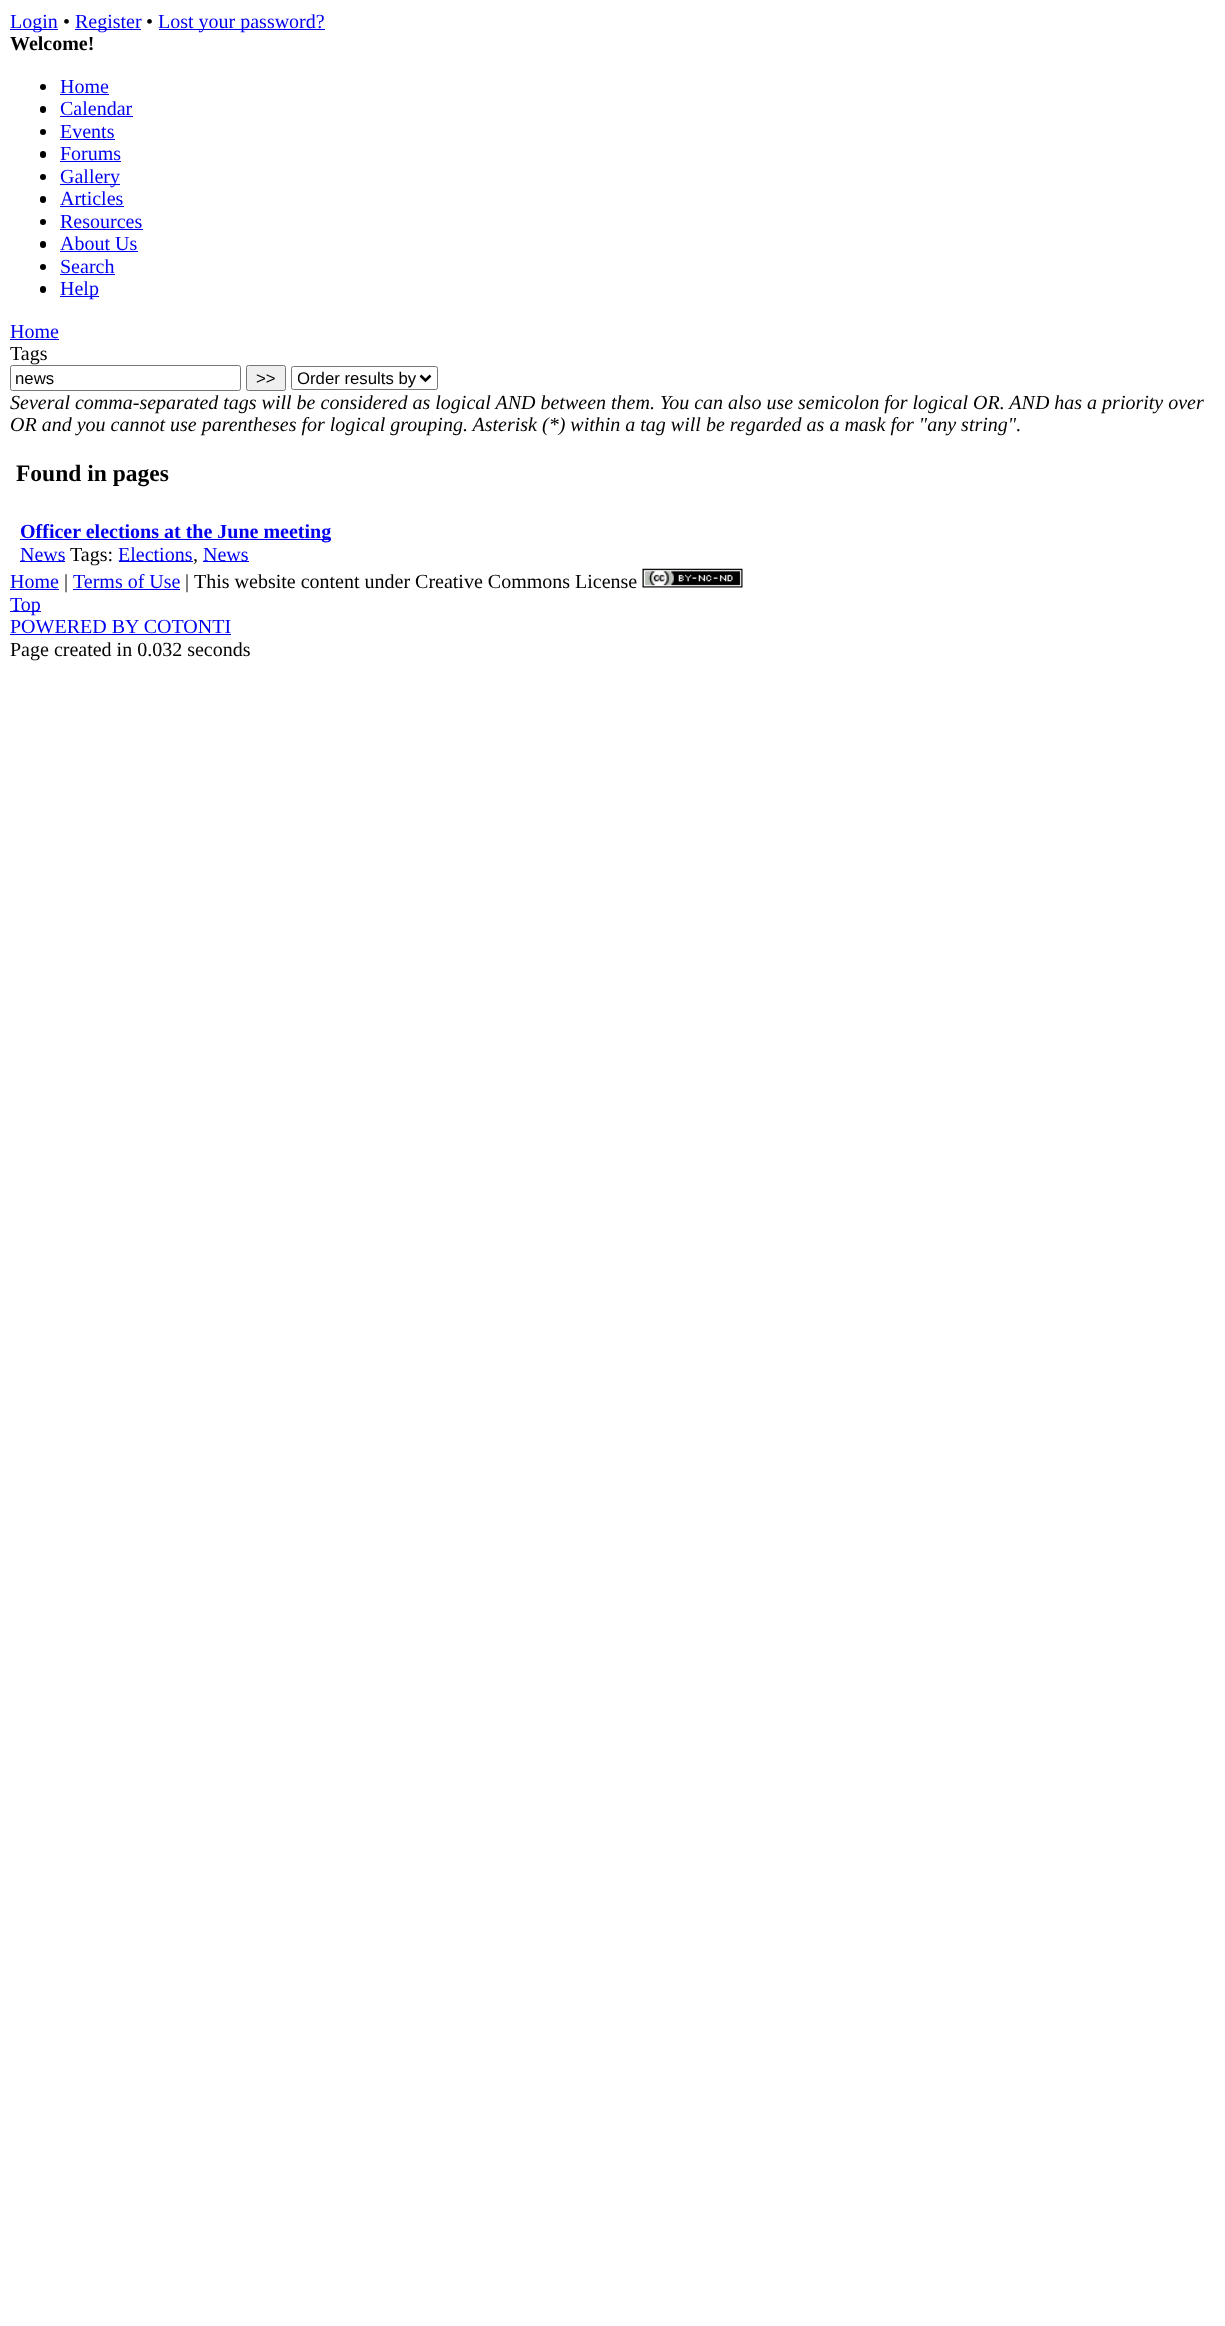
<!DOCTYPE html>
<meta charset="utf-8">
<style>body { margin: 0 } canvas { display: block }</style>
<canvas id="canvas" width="1225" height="2326"></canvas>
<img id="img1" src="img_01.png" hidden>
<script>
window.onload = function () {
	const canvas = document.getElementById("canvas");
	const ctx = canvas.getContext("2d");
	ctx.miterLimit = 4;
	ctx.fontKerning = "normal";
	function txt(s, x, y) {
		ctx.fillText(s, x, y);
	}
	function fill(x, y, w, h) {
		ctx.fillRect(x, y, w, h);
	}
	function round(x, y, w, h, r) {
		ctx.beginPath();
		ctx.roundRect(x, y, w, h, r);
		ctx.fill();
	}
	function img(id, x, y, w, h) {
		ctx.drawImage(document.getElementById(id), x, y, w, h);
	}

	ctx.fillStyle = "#FFFFFF";
	fill(0, 0, 1225, 2326);
	ctx.fillStyle = "#0000EE";
	fill(10, 29, 48, 1);
	fill(75, 29, 66, 1);
	fill(159, 29, 166, 1);
	ctx.fillStyle = "#000000";
	ctx.beginPath();
	ctx.arc(43, 87, 3, 0, Math.PI * 2);
	ctx.fill();
	ctx.fillStyle = "#0000EE";
	fill(60, 94, 49, 1);
	ctx.fillStyle = "#000000";
	round(40, 106, 6, 7, 3);
	ctx.fillStyle = "#0000EE";
	fill(60, 116, 73, 1);
	ctx.fillStyle = "#000000";
	ctx.beginPath();
	ctx.arc(43, 132, 3, 0, Math.PI * 2);
	ctx.fill();
	ctx.fillStyle = "#0000EE";
	fill(60, 139, 55, 1);
	ctx.fillStyle = "#000000";
	round(40, 151, 6, 7, 3);
	ctx.fillStyle = "#0000EE";
	fill(60, 161, 61, 1);
	ctx.fillStyle = "#000000";
	ctx.beginPath();
	ctx.arc(43, 177, 3, 0, Math.PI * 2);
	ctx.fill();
	ctx.fillStyle = "#0000EE";
	fill(60, 184, 60, 1);
	ctx.fillStyle = "#000000";
	round(40, 196, 6, 7, 3);
	ctx.fillStyle = "#0000EE";
	fill(60, 206, 64, 1);
	ctx.fillStyle = "#000000";
	ctx.beginPath();
	ctx.arc(43, 222, 3, 0, Math.PI * 2);
	ctx.fill();
	ctx.fillStyle = "#0000EE";
	fill(60, 229, 83, 1);
	ctx.fillStyle = "#000000";
	round(40, 241, 6, 7, 3);
	ctx.fillStyle = "#0000EE";
	fill(60, 251, 78, 1);
	ctx.fillStyle = "#000000";
	ctx.beginPath();
	ctx.arc(43, 267, 3, 0, Math.PI * 2);
	ctx.fill();
	ctx.fillStyle = "#0000EE";
	fill(60, 274, 55, 1);
	ctx.fillStyle = "#000000";
	round(40, 286, 6, 7, 3);
	ctx.fillStyle = "#0000EE";
	fill(60, 296, 39, 1);
	fill(10, 339, 49, 1);
	ctx.beginPath();
	ctx.roundRect(10.5, 365.5, 230, 25, 2);
	ctx.strokeStyle = "#767676";
	ctx.stroke();
	ctx.fillStyle = "#EFEFEF";
	ctx.beginPath();
	ctx.roundRect(246.5, 365.5, 39, 25, 2);
	ctx.fill();
	ctx.stroke();
	ctx.beginPath();
	ctx.roundRect(291.5, 366.5, 146, 23, 2);
	ctx.stroke();
	ctx.beginPath();
	ctx.moveTo(420.5, 375.5);
	ctx.lineTo(425.5, 380.5);
	ctx.lineTo(430.5, 375.5);
	ctx.strokeStyle = "#000000";
	ctx.lineWidth = 2.5;
	ctx.stroke();
	ctx.fillStyle = "#0000EE";
	fill(20, 539, 311, 1);
	fill(20, 561, 45, 1);
	fill(119, 561, 74, 1);
	fill(203, 561, 46, 1);
	fill(10, 589, 49, 1);
	fill(73, 589, 107, 1);
	img("img1", 642, 568, 101, 20);
	fill(10, 611, 31, 1);
	fill(10, 634, 221, 1);
	ctx.font = "20px Liberation Serif";
	txt("Login", 10, 28);
	ctx.fillStyle = "#000000";
	txt("•", 63, 28);
	ctx.fillStyle = "#0000EE";
	txt("Register", 75, 28);
	ctx.fillStyle = "#000000";
	txt("•", 146, 28);
	ctx.fillStyle = "#0000EE";
	txt("Lost your password?", 158, 28);
	ctx.font = "bold 20px Liberation Serif";
	ctx.fillStyle = "#000000";
	txt("Welcome!", 10, 50);
	ctx.font = "20px Liberation Serif";
	ctx.fillStyle = "#0000EE";
	txt("Home", 60, 93);
	txt("Calendar", 60, 115);
	txt("Events", 60, 138);
	txt("Forums", 60, 160);
	txt("Gallery", 60, 183);
	txt("Articles", 60, 205);
	txt("Resources", 60, 228);
	txt("About Us", 60, 250);
	txt("Search", 60, 273);
	txt("Help", 60, 295);
	txt("Home", 10, 338);
	ctx.fillStyle = "#000000";
	txt("Tags", 10, 360);
	ctx.font = "16.75px Liberation Sans";
	txt("news", 15, 384);
	txt(">>", 256, 384);
	ctx.save();
	ctx.beginPath();
	ctx.rect(298, 368, 118, 21);
	ctx.clip();
	txt("Order results by", 297, 384);
	ctx.restore();
	ctx.font = "italic 20px Liberation Serif";
	txt("Several comma-separated tags will be considered as logical AND between them. You can also use semicolon for logical OR. AND has a priority over", 10, 409);
	txt("OR and you cannot use parentheses for logical grouping. Asterisk (*) within a tag will be regarded as a mask for \"any string\".", 10, 431);
	ctx.font = "bold 23.5px Liberation Serif";
	txt("Found in pages", 16, 481);
	ctx.font = "bold 20px Liberation Serif";
	ctx.fillStyle = "#0000EE";
	txt("Officer elections at the June meeting", 20, 538);
	ctx.font = "20px Liberation Serif";
	txt("News", 20, 561);
	ctx.fillStyle = "#000000";
	txt("Tags:", 70, 561);
	ctx.fillStyle = "#0000EE";
	txt("Elections", 118, 561);
	ctx.fillStyle = "#000000";
	txt(",", 193, 561);
	ctx.fillStyle = "#0000EE";
	txt("News", 203, 561);
	txt("Home", 10, 588);
	ctx.fillStyle = "#000000";
	txt("|", 64, 588);
	ctx.fillStyle = "#0000EE";
	txt("Terms of Use", 73, 588);
	ctx.fillStyle = "#000000";
	txt("|", 185, 588);
	txt("This website content under Creative Commons License", 194, 588);
	ctx.fillStyle = "#0000EE";
	txt("Top", 10, 611);
	txt("POWERED BY COTONTI", 10, 633);
	ctx.fillStyle = "#000000";
	txt("Page created in 0.032 seconds", 10, 656);
};
</script>
